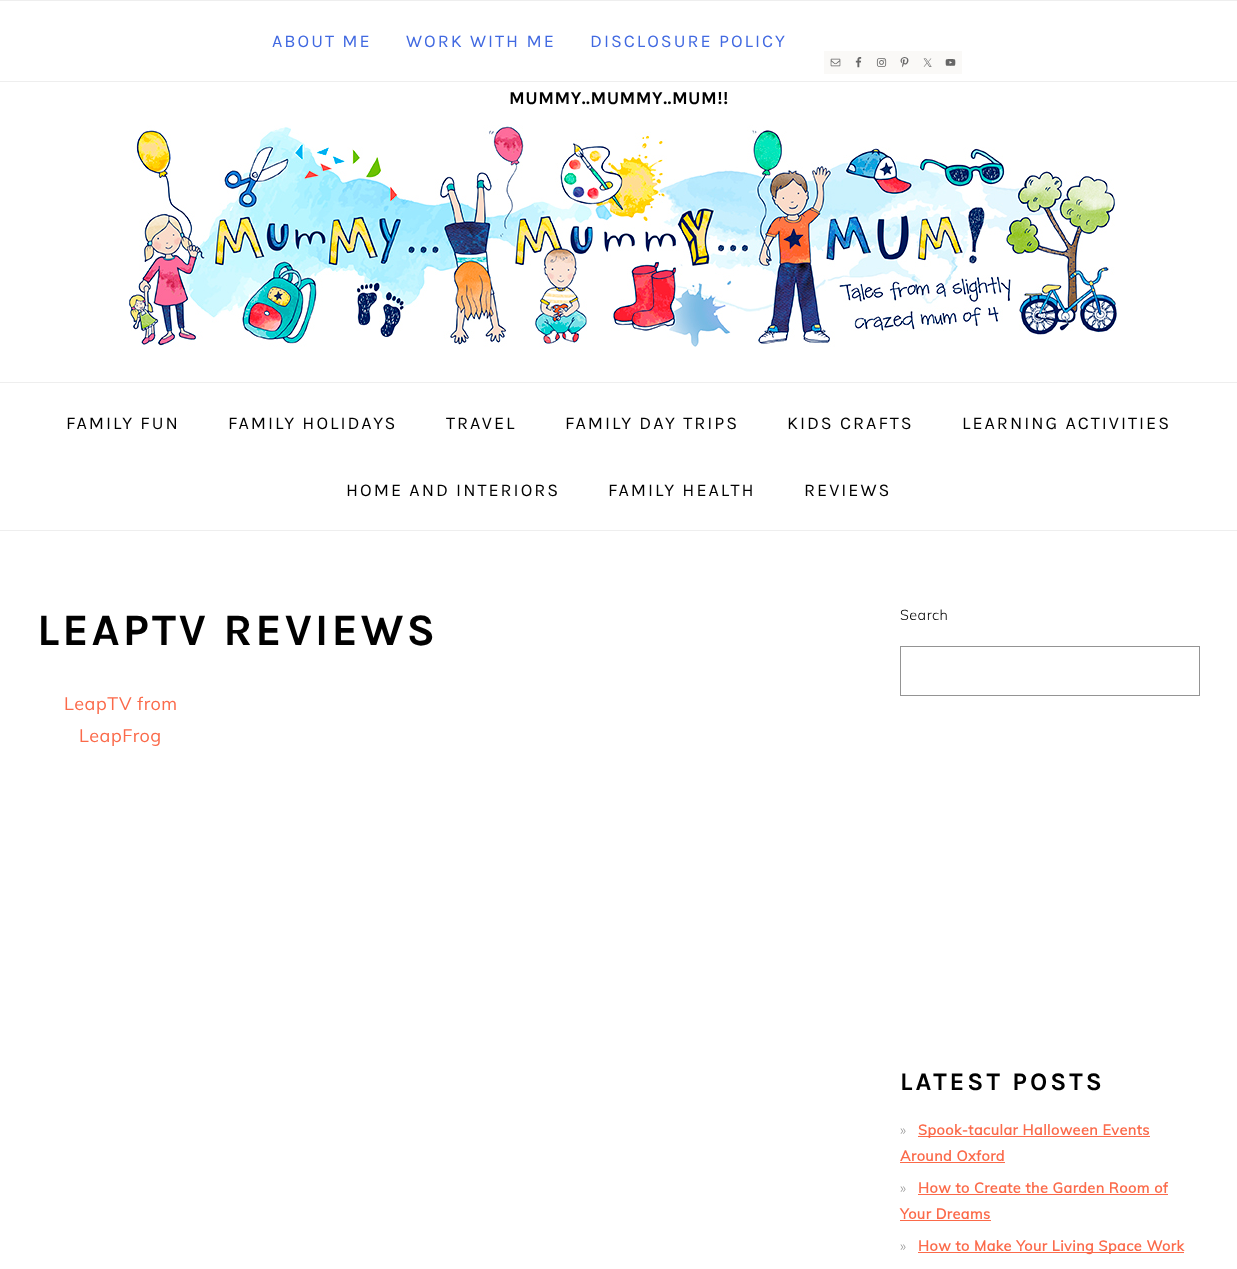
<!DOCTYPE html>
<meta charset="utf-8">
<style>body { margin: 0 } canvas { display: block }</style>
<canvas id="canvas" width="1237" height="1269"></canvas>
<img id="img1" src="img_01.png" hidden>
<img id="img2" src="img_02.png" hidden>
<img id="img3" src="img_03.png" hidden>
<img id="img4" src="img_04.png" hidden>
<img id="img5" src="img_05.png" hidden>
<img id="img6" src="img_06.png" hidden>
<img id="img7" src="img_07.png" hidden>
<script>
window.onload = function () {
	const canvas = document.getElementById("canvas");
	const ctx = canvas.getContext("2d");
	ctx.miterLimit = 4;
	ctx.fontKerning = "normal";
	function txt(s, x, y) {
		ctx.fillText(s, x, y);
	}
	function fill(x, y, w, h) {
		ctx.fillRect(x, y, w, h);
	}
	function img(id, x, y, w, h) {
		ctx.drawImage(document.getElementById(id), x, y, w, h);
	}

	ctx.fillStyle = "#FFFFFF";
	fill(0, 0, 1237, 1269);
	ctx.fillStyle = "#EEEEEE";
	fill(0, 0, 1237, 1);
	fill(0, 81, 1237, 1);
	ctx.fillStyle = "#FAF9F7";
	fill(824, 51, 138, 23);
	img("img1", 830, 58, 11, 9);
	img("img2", 855, 57, 7, 11);
	img("img3", 876, 58, 11, 9);
	img("img4", 900, 57, 9, 11);
	img("img5", 923, 58, 9, 9);
	img("img6", 945, 59, 11, 7);
	img("img7", 129, 125, 989, 222);
	ctx.fillStyle = "#EEEEEE";
	fill(0, 382, 1237, 1);
	fill(0, 530, 1237, 1);
	ctx.strokeStyle = "#949494";
	ctx.strokeRect(900.5, 646.5, 299, 49);
	ctx.fillStyle = "#FB6A4A";
	fill(918, 1136, 232, 1);
	fill(900, 1162, 105, 1);
	fill(918, 1194, 250, 1);
	fill(900, 1220, 91, 1);
	fill(918, 1252, 266, 1);
	ctx.letterSpacing = "2px";
	ctx.font = "18px Karla";
	ctx.fillStyle = "#4169E1";
	txt("ABOUT ME", 272, 47);
	txt("WORK WITH ME", 406, 47);
	txt("DISCLOSURE POLICY", 590, 47);
	ctx.letterSpacing = "0.5px";
	ctx.font = "bold 18px Karla";
	ctx.fillStyle = "#010101";
	txt("MUMMY..MUMMY..MUM!!", 509, 104);
	ctx.letterSpacing = "2px";
	ctx.font = "18px Karla";
	txt("FAMILY FUN", 66, 429);
	txt("FAMILY HOLIDAYS", 228, 429);
	txt("TRAVEL", 446, 429);
	txt("FAMILY DAY TRIPS", 565, 429);
	txt("KIDS CRAFTS", 787, 429);
	txt("LEARNING ACTIVITIES", 962, 429);
	txt("HOME AND INTERIORS", 346, 496);
	txt("FAMILY HEALTH", 608, 496);
	txt("REVIEWS", 804, 496);
	ctx.letterSpacing = "3px";
	ctx.font = "bold 45px Karla";
	txt("LEAPTV REVIEWS", 37, 645);
	ctx.letterSpacing = "0.5px";
	ctx.font = "18px Muli";
	ctx.fillStyle = "#FB6A4A";
	txt("LeapTV from", 64, 710);
	txt("LeapFrog", 79, 742);
	ctx.font = "300 14.4px Muli";
	ctx.fillStyle = "#010101";
	txt("Search", 900, 620);
	ctx.letterSpacing = "3px";
	ctx.font = "bold 25.25px Karla";
	txt("LATEST POSTS", 900, 1090);
	ctx.letterSpacing = "0.5px";
	ctx.font = "300 14.4px Muli";
	ctx.fillStyle = "#999999";
	txt("»", 900, 1135);
	ctx.font = "bold 14.4px Muli";
	ctx.fillStyle = "#FB6A4A";
	txt("Spook-tacular Halloween Events", 918, 1135);
	txt("Around Oxford", 900, 1161);
	ctx.font = "300 14.4px Muli";
	ctx.fillStyle = "#999999";
	txt("»", 900, 1193);
	ctx.font = "bold 14.4px Muli";
	ctx.fillStyle = "#FB6A4A";
	txt("How to Create the Garden Room of", 918, 1193);
	txt("Your Dreams", 900, 1219);
	ctx.font = "300 14.4px Muli";
	ctx.fillStyle = "#999999";
	txt("»", 900, 1251);
	ctx.font = "bold 14.4px Muli";
	ctx.fillStyle = "#FB6A4A";
	txt("How to Make Your Living Space Work", 918, 1251);
};
</script>
